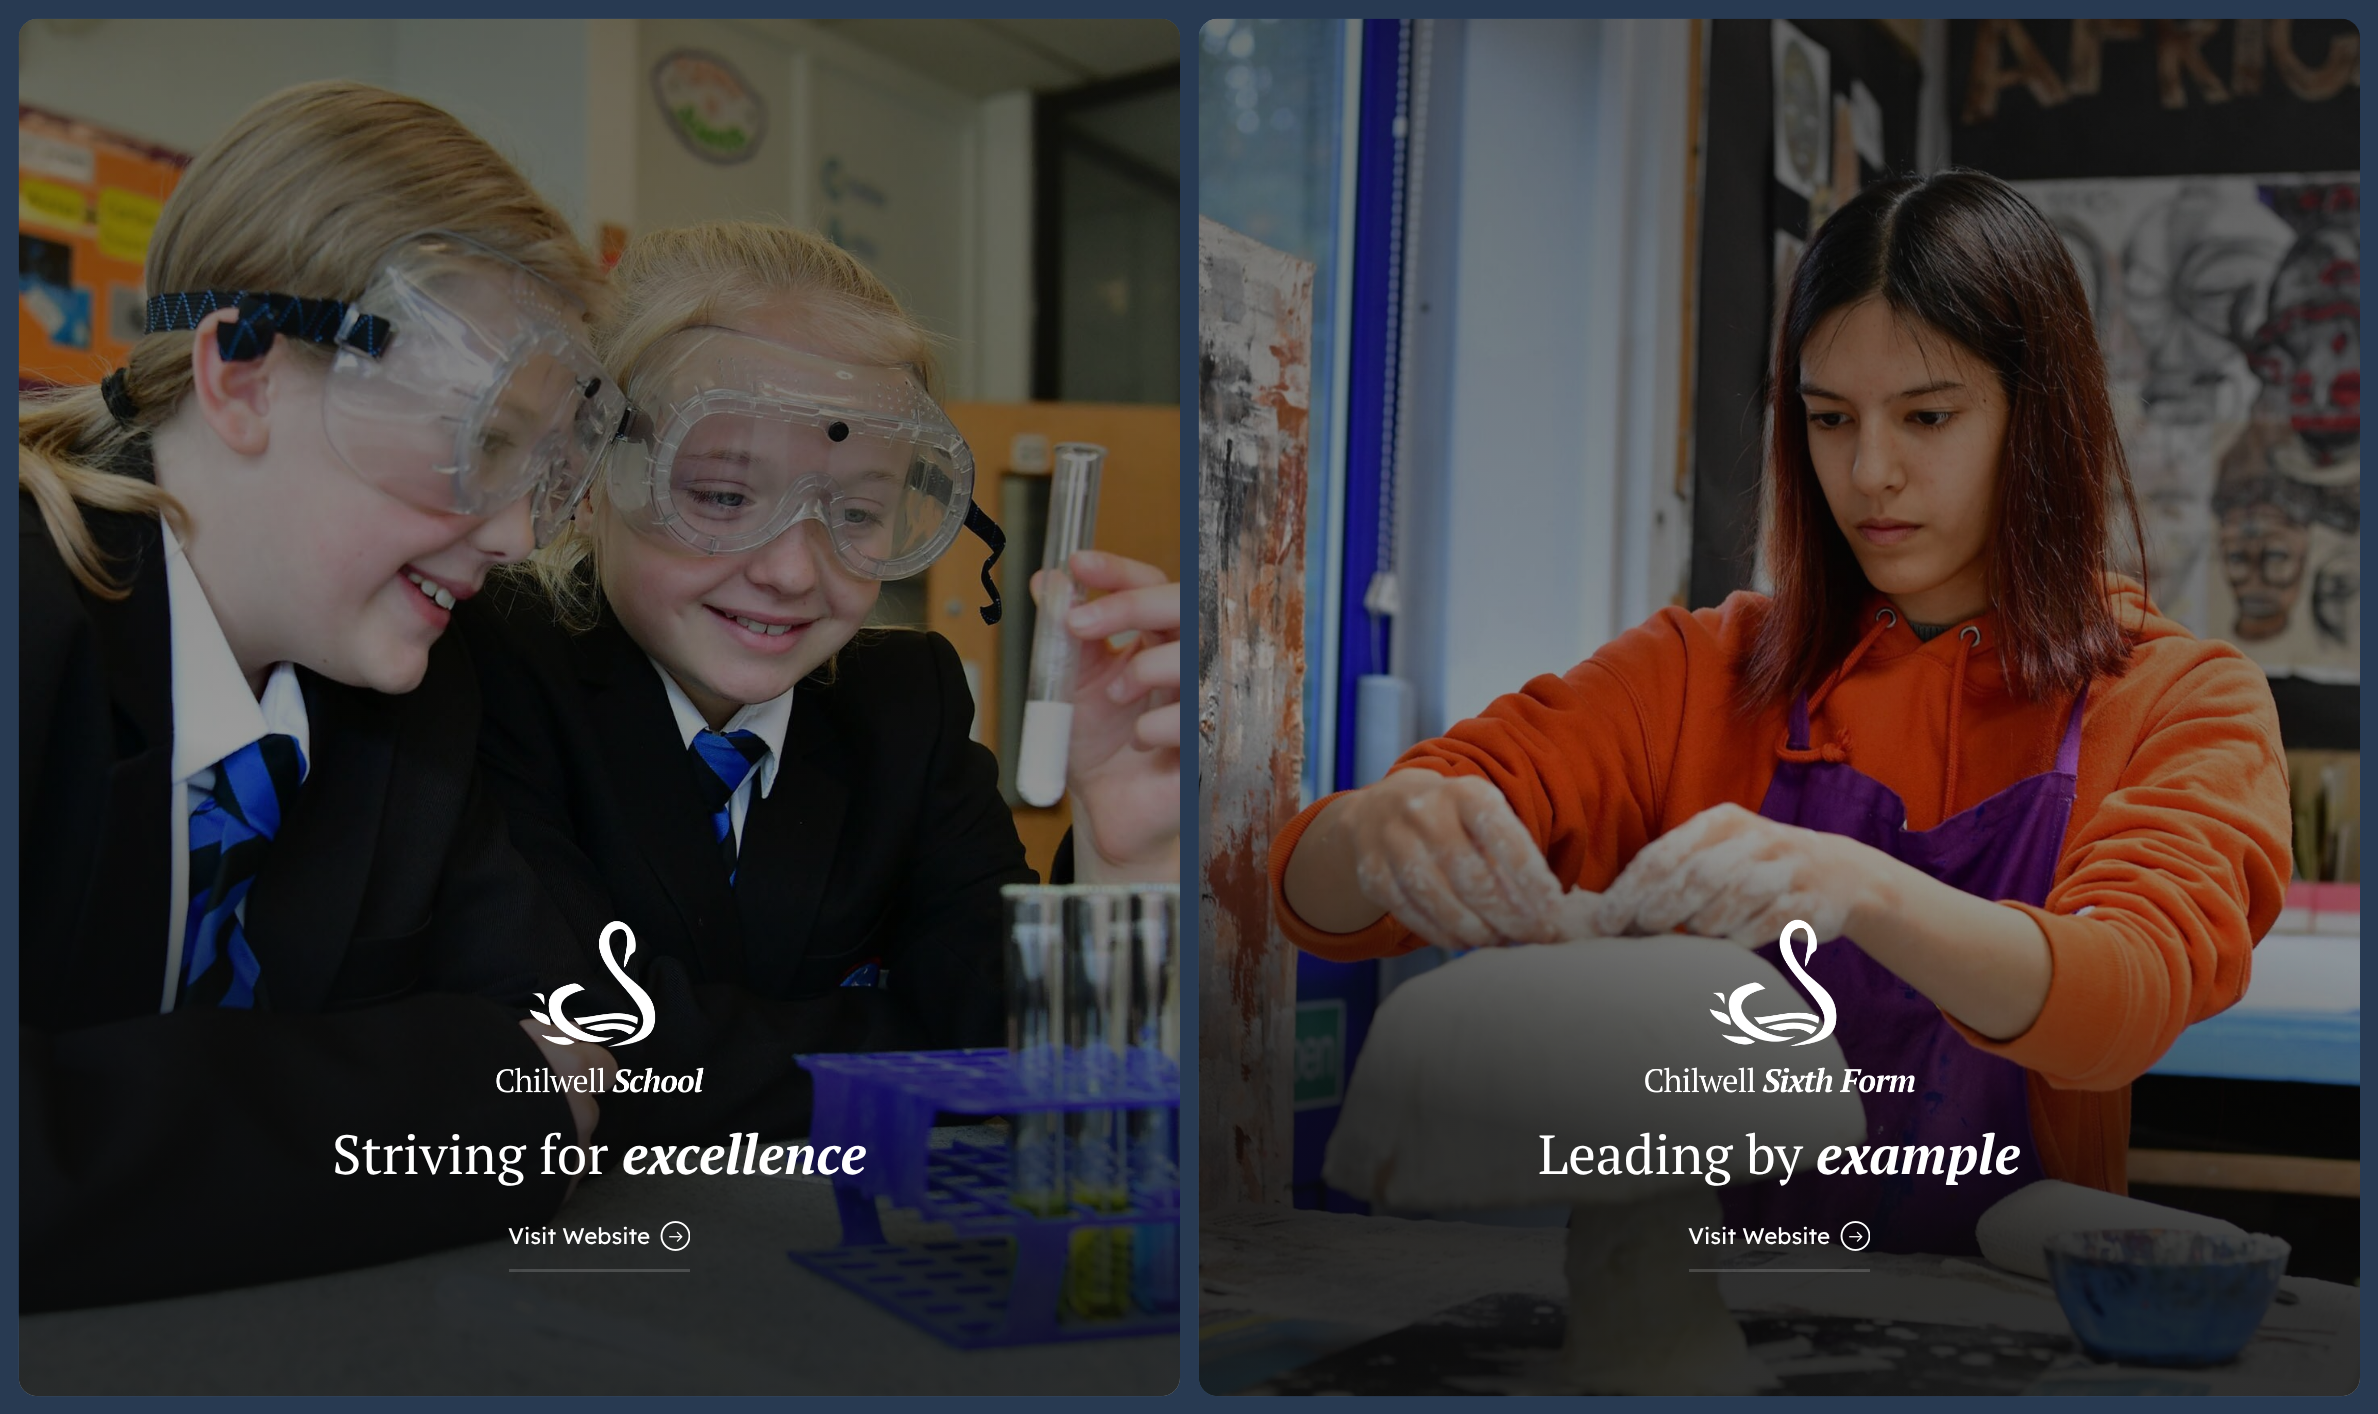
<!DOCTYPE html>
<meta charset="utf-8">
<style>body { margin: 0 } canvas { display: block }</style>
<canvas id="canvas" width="2378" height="1414"></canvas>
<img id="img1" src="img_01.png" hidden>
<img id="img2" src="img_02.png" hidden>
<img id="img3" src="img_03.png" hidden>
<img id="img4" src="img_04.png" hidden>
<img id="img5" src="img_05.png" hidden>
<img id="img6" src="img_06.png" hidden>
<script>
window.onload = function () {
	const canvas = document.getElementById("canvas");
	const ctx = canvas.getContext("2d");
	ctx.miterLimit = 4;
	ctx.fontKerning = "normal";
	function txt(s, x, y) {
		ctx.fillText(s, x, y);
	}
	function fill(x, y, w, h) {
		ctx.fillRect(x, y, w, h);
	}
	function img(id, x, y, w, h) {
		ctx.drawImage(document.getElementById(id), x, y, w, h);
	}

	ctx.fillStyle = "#283A52";
	fill(0, 0, 2378, 1414);
	img("img1", 18, 18, 1162, 1379);
	img("img2", 496, 919, 208, 174);
	ctx.fillStyle = "rgba(255, 255, 255, 0.17)";
	fill(509, 1269, 181, 3);
	img("img3", 660, 1221, 30, 30);
	img("img4", 1198, 18, 1162, 1379);
	img("img5", 1645, 919, 270, 174);
	fill(1689, 1269, 181, 3);
	img("img6", 1840, 1221, 30, 30);
	ctx.font = "55px PT Serif";
	ctx.fillStyle = "#FFFFFF";
	txt("Striving for", 332, 1174);
	ctx.font = "italic bold 55px PT Serif";
	txt("excellence", 622, 1174);
	ctx.font = "22.5px Lexend";
	txt("Visit Website", 508, 1244);
	ctx.font = "55px PT Serif";
	txt("Leading by", 1538, 1174);
	ctx.font = "italic bold 55px PT Serif";
	txt("example", 1816, 1174);
	ctx.font = "22.5px Lexend";
	txt("Visit Website", 1688, 1244);
};
</script>
